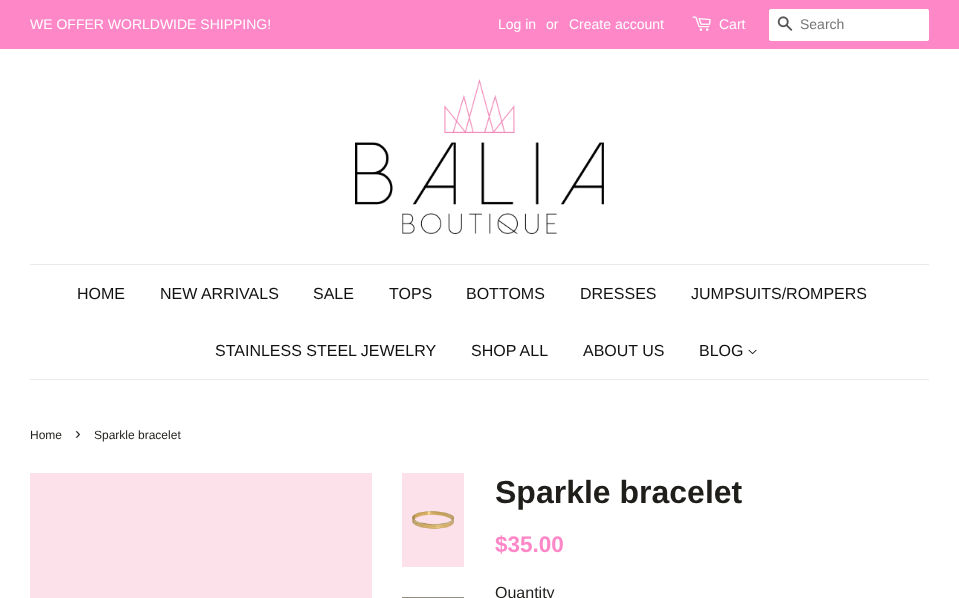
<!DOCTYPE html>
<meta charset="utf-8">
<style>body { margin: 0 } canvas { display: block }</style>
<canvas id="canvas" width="959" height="598"></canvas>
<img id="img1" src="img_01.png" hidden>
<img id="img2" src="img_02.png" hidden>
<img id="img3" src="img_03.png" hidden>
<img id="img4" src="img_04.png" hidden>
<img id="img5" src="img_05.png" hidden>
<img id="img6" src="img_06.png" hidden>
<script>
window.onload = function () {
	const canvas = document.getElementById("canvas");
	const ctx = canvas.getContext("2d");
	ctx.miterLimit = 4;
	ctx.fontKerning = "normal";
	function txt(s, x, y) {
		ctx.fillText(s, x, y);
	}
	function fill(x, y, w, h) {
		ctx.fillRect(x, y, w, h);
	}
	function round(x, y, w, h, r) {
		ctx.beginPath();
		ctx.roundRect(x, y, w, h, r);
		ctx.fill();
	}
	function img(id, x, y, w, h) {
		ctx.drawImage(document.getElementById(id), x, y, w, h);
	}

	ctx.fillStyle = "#FFFFFF";
	fill(0, 0, 959, 598);
	ctx.fillStyle = "#FE87C8";
	fill(0, 0, 959, 49);
	img("img1", 692, 16, 19, 15);
	ctx.fillStyle = "#FFFFFF";
	round(769, 9, 160, 32, 2);
	img("img2", 777, 16, 16, 15);
	img("img3", 355, 79, 249, 155);
	ctx.fillStyle = "#EAEAEA";
	fill(30, 264, 899, 1);
	fill(30, 379, 899, 1);
	img("img4", 748, 349, 9, 6);
	ctx.fillStyle = "#FCE1EA";
	fill(30, 473, 342, 125);
	img("img5", 402, 473, 62, 94);
	img("img6", 402, 597, 62, 1);
	ctx.font = "14px Liberation Sans";
	ctx.fillStyle = "#FFFFFF";
	txt("WE OFFER WORLDWIDE SHIPPING!", 30, 29);
	txt("Log in", 498, 29);
	txt("or", 546, 29);
	txt("Create account", 569, 29);
	txt("Cart", 719, 29);
	ctx.fillStyle = "#757575";
	txt("Search", 800, 29);
	ctx.font = "16px Liberation Sans";
	ctx.fillStyle = "#111111";
	txt("HOME", 77, 299);
	txt("NEW ARRIVALS", 160, 299);
	txt("SALE", 313, 299);
	txt("TOPS", 389, 299);
	txt("BOTTOMS", 466, 299);
	txt("DRESSES", 580, 299);
	txt("JUMPSUITS/ROMPERS", 691, 299);
	txt("STAINLESS STEEL JEWELRY", 215, 356);
	txt("SHOP ALL", 471, 356);
	txt("ABOUT US", 583, 356);
	txt("BLOG", 699, 356);
	ctx.font = "12px Liberation Sans";
	ctx.fillStyle = "#1F1E1B";
	txt("Home", 30, 439);
	ctx.font = "17px Liberation Sans";
	txt("›", 75, 439);
	ctx.font = "12px Liberation Sans";
	txt("Sparkle bracelet", 94, 439);
	ctx.font = "bold 32px Liberation Sans";
	txt("Sparkle bracelet", 495, 503);
	ctx.font = "bold 22.5px Liberation Sans";
	ctx.fillStyle = "#FE87C8";
	txt("$35.00", 495, 552);
	ctx.font = "16px Liberation Sans";
	ctx.fillStyle = "#1F1E1B";
	txt("Quantity", 495, 598);
};
</script>
